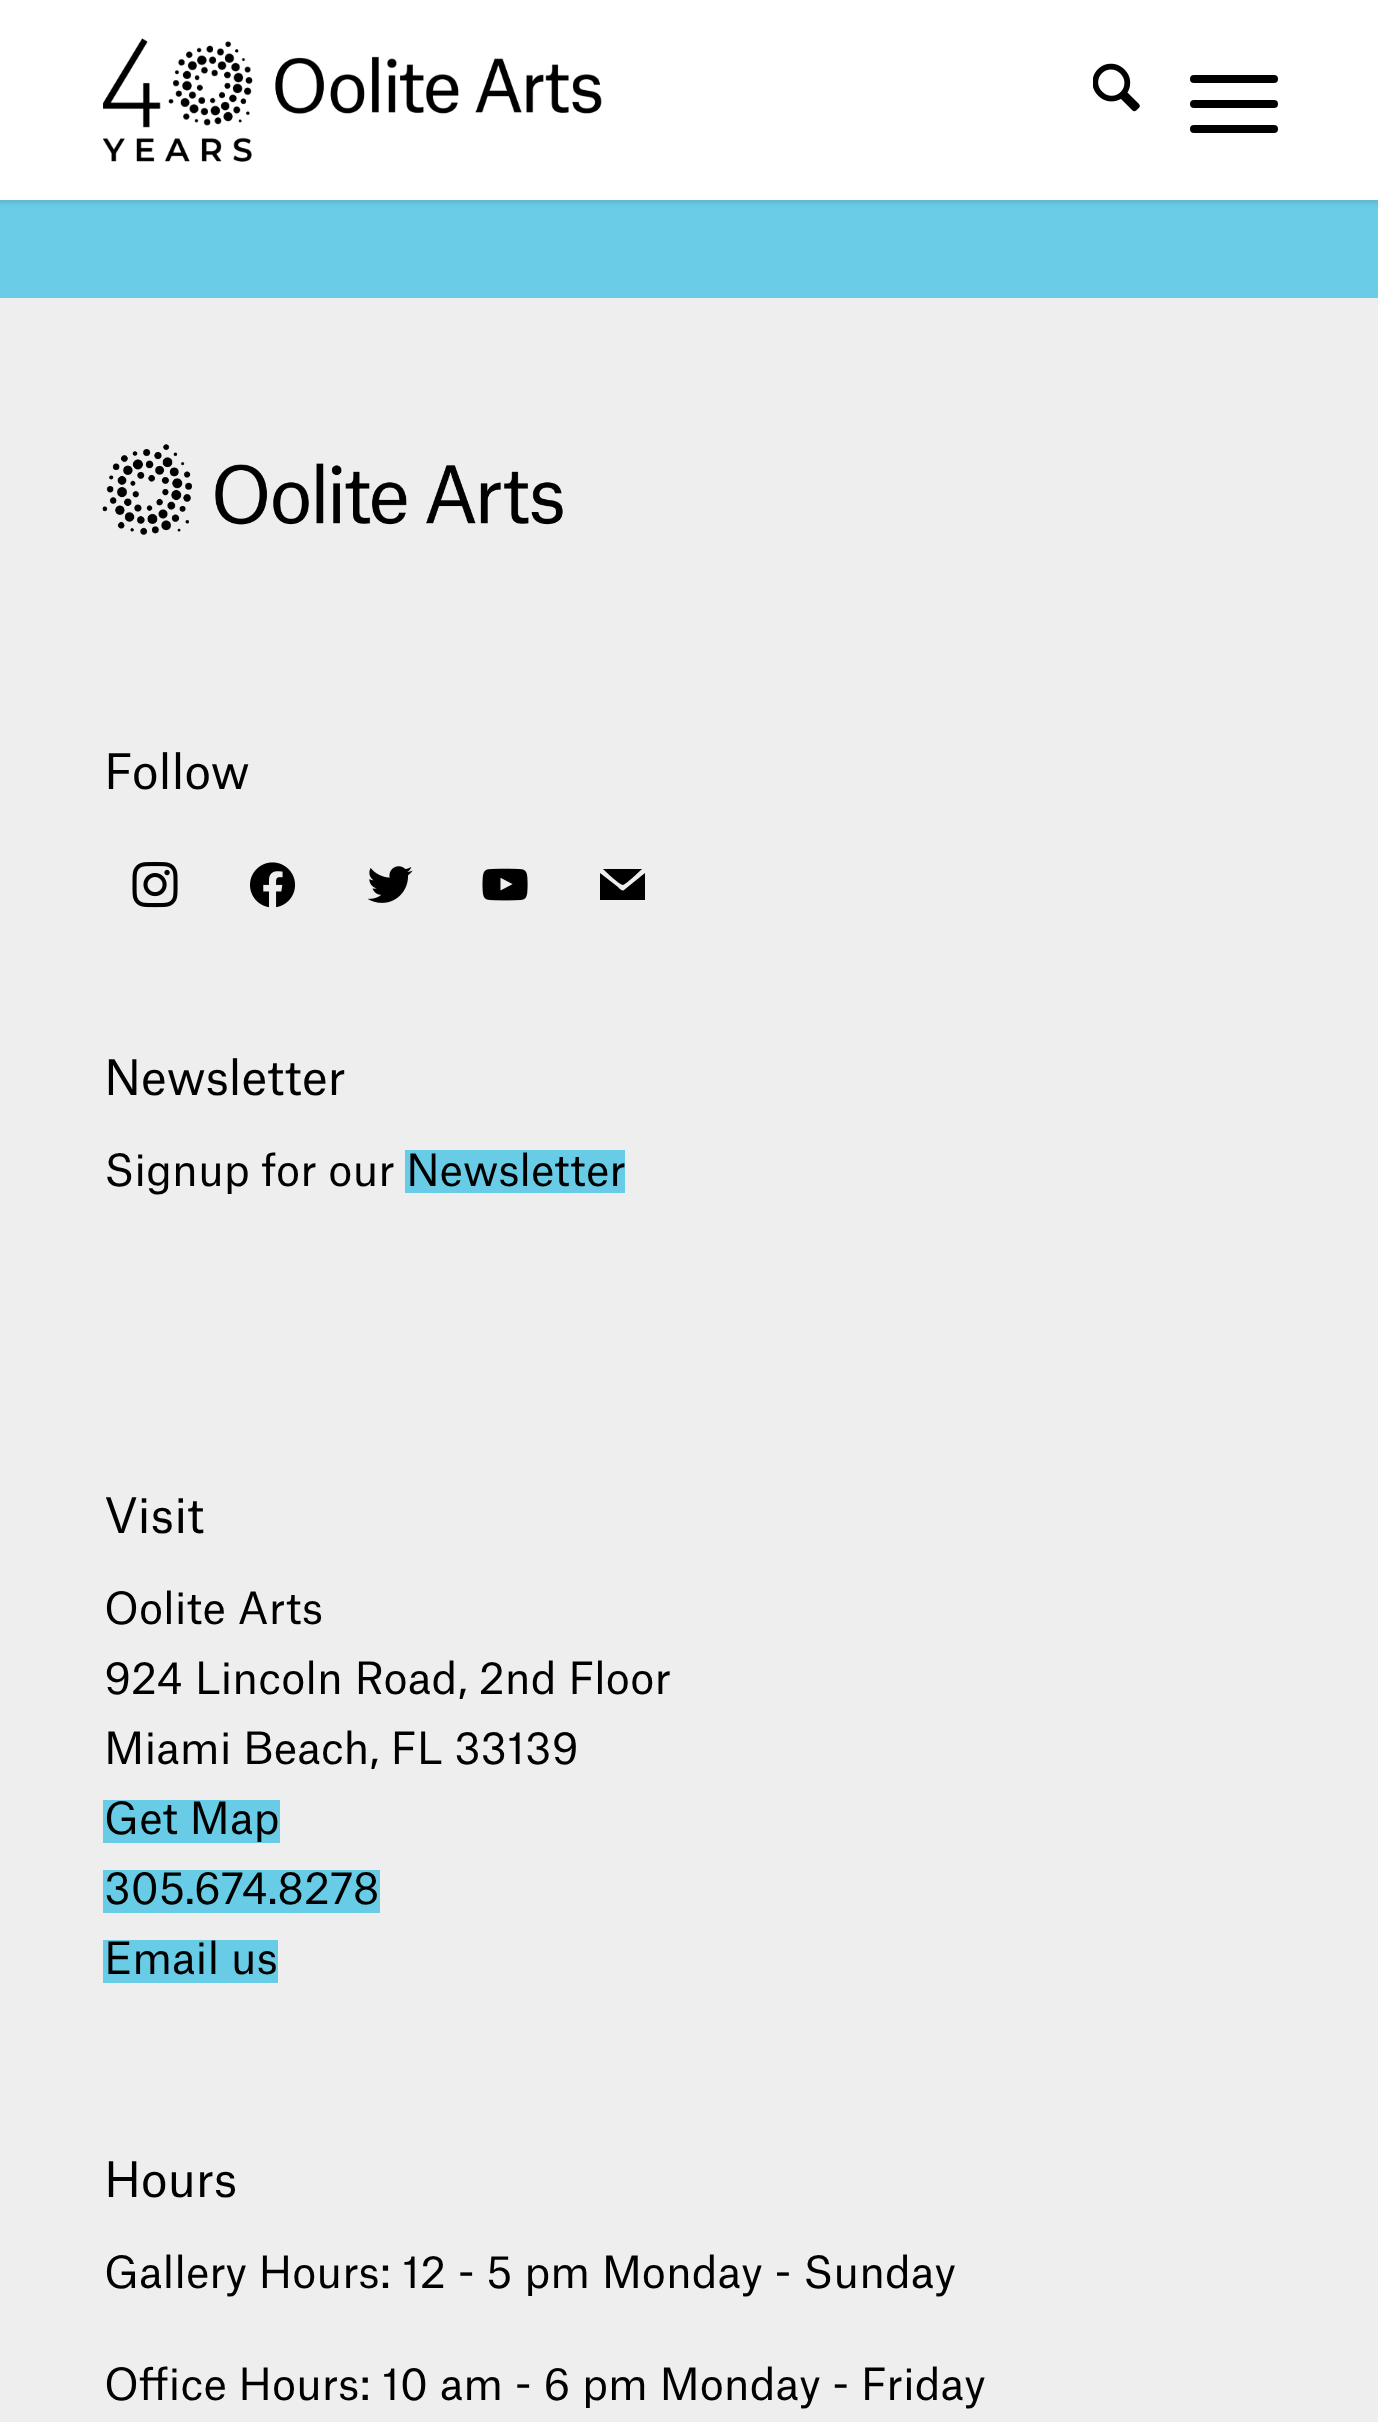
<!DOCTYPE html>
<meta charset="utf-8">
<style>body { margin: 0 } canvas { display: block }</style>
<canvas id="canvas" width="1378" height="2422"></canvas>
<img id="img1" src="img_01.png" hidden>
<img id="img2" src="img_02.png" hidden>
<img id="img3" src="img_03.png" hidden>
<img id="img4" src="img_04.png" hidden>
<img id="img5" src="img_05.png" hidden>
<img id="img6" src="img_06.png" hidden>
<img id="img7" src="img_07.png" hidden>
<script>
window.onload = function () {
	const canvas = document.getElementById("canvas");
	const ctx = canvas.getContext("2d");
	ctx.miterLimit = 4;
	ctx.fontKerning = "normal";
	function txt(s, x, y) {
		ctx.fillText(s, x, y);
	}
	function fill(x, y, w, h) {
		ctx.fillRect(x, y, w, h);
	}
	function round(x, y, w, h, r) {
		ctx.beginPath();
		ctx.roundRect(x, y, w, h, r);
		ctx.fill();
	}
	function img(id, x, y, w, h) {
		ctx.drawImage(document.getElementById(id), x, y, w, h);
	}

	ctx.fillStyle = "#6ACCE6";
	fill(0, 0, 1378, 2422);
	ctx.fillStyle = "rgba(0, 0, 0, 0.1)";
	ctx.filter = "blur(2.5px)";
	ctx.beginPath();
	ctx.rect(-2, -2, 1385, 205);
	ctx.fill();
	ctx.filter = "none";
	ctx.fillStyle = "#FFFFFF";
	fill(0, 0, 1378, 200);
	img("img1", 103, 38, 499, 124);
	img("img2", 1093, 63, 47, 49);
	ctx.fillStyle = "#000000";
	round(1190, 100, 88, 8, 4);
	round(1190, 75, 88, 8, 4);
	round(1190, 125, 88, 8, 4);
	ctx.fillStyle = "#EEEEEE";
	fill(0, 298, 1378, 2124);
	img("img3", 102, 444, 461, 91);
	img("img4", 132, 862, 46, 46);
	img("img5", 250, 862, 46, 46);
	img("img6", 367, 866, 46, 37);
	img("img7", 482, 868, 46, 33);
	ctx.fillStyle = "#000000";
	ctx.beginPath();
	ctx.moveTo(624, 890);
	ctx.bezierCurveTo(622, 892, 619, 888, 618, 887);
	ctx.lineTo(600, 873);
	ctx.lineTo(600, 900);
	ctx.lineTo(645, 900);
	ctx.lineTo(645, 873);
	ctx.closePath();
	ctx.moveTo(623, 885);
	ctx.bezierCurveTo(625, 885, 639, 872, 642, 869);
	ctx.lineTo(603, 869);
	ctx.bezierCurveTo(606, 872, 620, 885, 623, 885);
	ctx.closePath();
	ctx.fill();
	ctx.fillStyle = "#69CCE6";
	fill(405, 1150, 220, 43);
	fill(103, 1800, 177, 43);
	fill(103, 1870, 277, 43);
	fill(103, 1940, 175, 43);
	ctx.font = "46.75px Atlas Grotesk";
	ctx.fillStyle = "#000000";
	txt("Follow", 104, 789);
	txt("Newsletter", 104, 1095);
	ctx.font = "42.5px Atlas Grotesk";
	txt("Signup for our", 104, 1186);
	txt("Newsletter", 406, 1186);
	ctx.font = "46.75px Atlas Grotesk";
	txt("Visit", 104, 1533);
	ctx.font = "42.5px Atlas Grotesk";
	txt("Oolite Arts", 104, 1624);
	txt("924 Lincoln Road, 2nd Floor", 104, 1694);
	txt("Miami Beach, FL 33139", 104, 1764);
	txt("Get Map", 104, 1834);
	txt("305.674.8278", 104, 1904);
	txt("Email us", 104, 1974);
	ctx.font = "46.75px Atlas Grotesk";
	txt("Hours", 104, 2197);
	ctx.font = "42.5px Atlas Grotesk";
	txt("Gallery Hours: 12 - 5 pm Monday - Sunday", 104, 2288);
	txt("Office Hours: 10 am - 6 pm Monday - Friday", 104, 2400);
};
</script>
